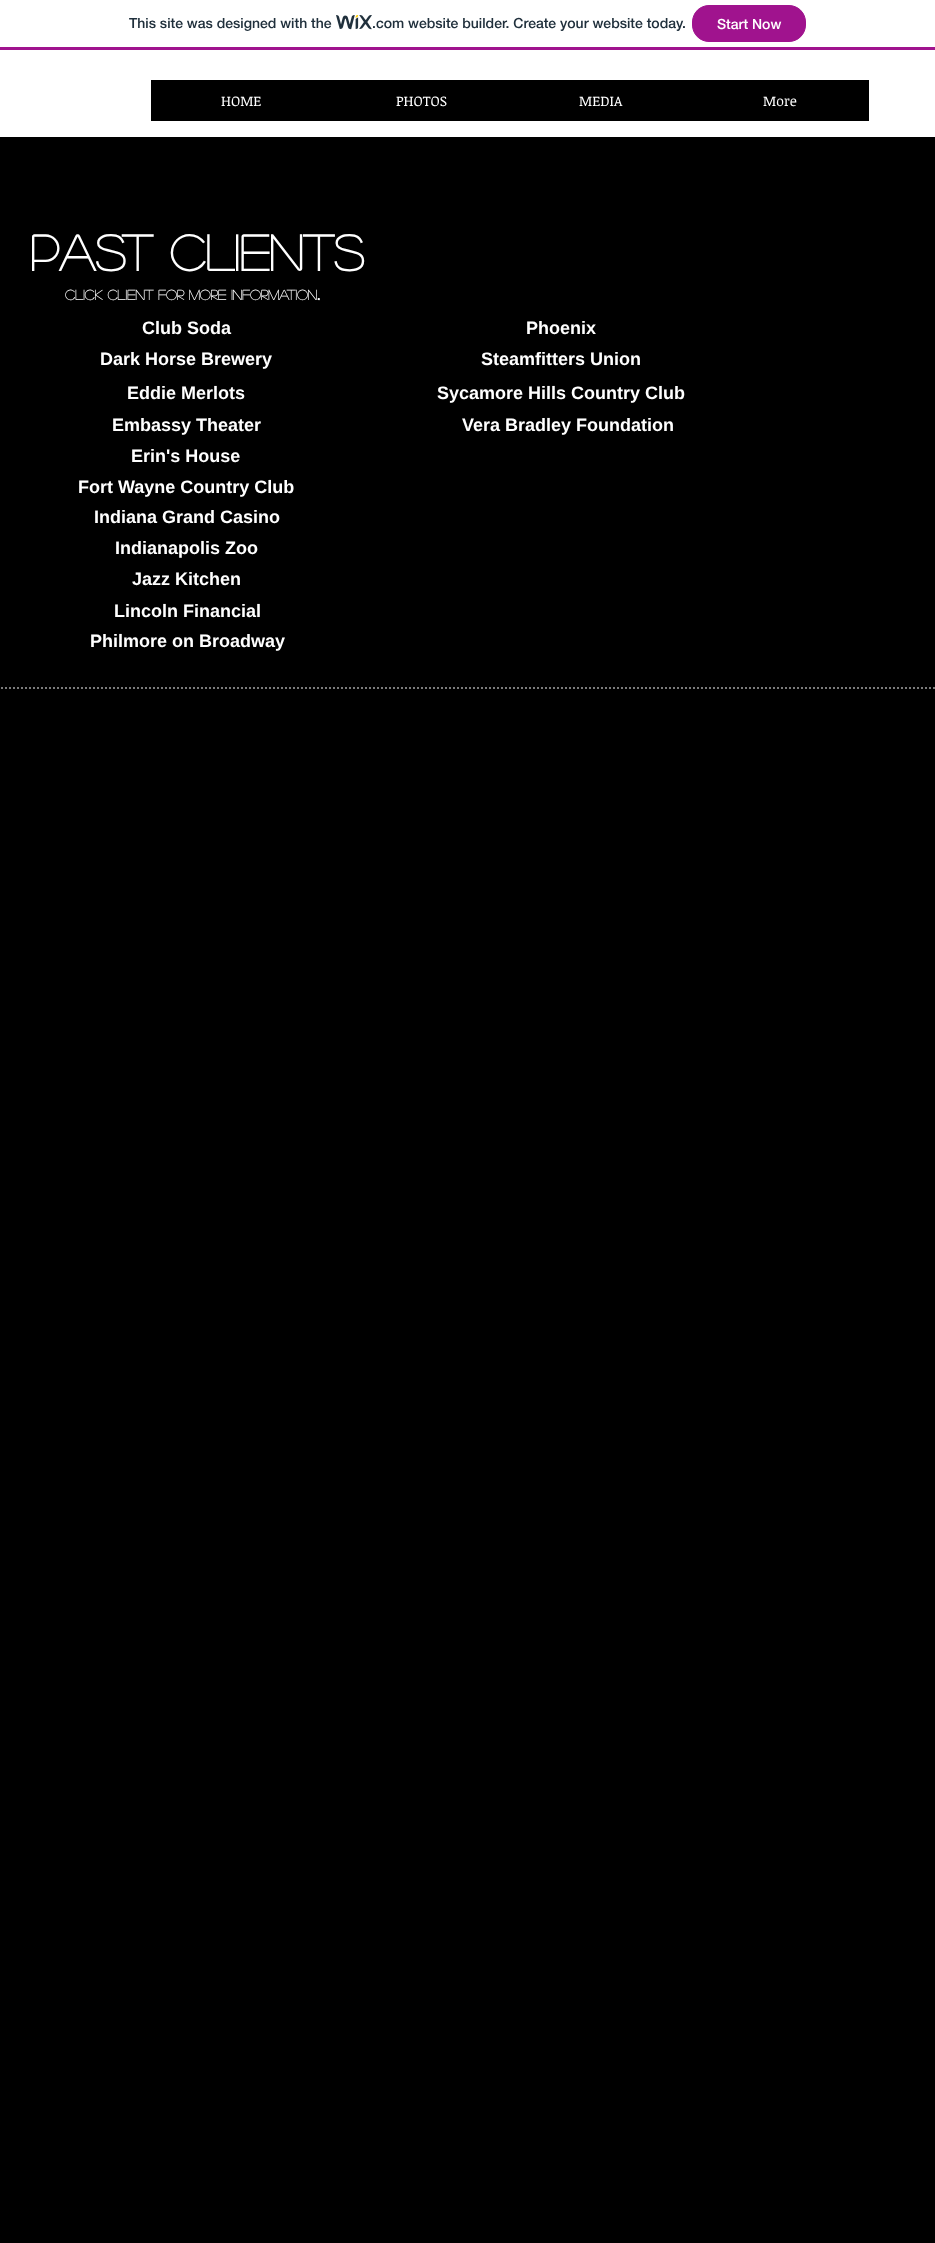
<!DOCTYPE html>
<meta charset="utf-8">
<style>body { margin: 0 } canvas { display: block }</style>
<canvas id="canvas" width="935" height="2243"></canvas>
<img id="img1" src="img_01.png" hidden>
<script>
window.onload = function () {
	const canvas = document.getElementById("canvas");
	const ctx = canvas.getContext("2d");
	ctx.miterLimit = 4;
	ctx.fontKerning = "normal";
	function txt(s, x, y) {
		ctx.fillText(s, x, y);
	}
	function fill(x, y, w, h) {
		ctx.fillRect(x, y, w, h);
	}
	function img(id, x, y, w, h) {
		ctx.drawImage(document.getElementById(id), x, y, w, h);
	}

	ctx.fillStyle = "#FFFFFF";
	fill(0, 0, 935, 2243);
	ctx.fillStyle = "#A0138E";
	fill(0, 47, 935, 3);
	img("img1", 336, 15, 36, 15);
	ctx.beginPath();
	ctx.roundRect(692.5, 5.5, 113, 36, 16.5);
	ctx.fill();
	ctx.strokeStyle = "#A0138E";
	ctx.stroke();
	ctx.fillStyle = "#000000";
	fill(151, 80, 718, 41);
	fill(0, 137, 935, 2106);
	ctx.beginPath();
	ctx.moveTo(1, 688);
	ctx.lineTo(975, 688);
	ctx.strokeStyle = "#7B7B7B";
	ctx.lineWidth = 2;
	ctx.setLineDash([2, 2]);
	ctx.stroke();
	ctx.font = "500 14px 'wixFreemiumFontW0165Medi'";
	ctx.fillStyle = "#20303C";
	txt("This site was designed with the", 129, 28);
	txt(".com website builder. Create your website today.", 372, 28);
	ctx.fillStyle = "#FFFFFF";
	txt("Start Now", 717, 29);
	ctx.font = "14px Noticia Text";
	txt("HOME", 221, 106);
	txt("PHOTOS", 396, 106);
	txt("MEDIA", 579, 106);
	txt("More", 763, 106);
	ctx.font = "bold 50px 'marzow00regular'";
	txt("Past Clients", 30, 271);
	ctx.font = "bold 14px 'marzow00regular'";
	txt("Click client for more information", 65, 300);
	ctx.font = "bold 14px Noticia Text";
	txt(".", 317, 300);
	ctx.font = "bold 18px Liberation Sans";
	txt("Club Soda", 142, 334);
	txt("Phoenix", 526, 334);
	txt("Dark Horse Brewery", 100, 365);
	txt("Steamfitters Union", 481, 365);
	txt("Eddie Merlots", 127, 399);
	txt("Sycamore Hills Country Club", 437, 399);
	txt("Embassy Theater", 112, 431);
	txt("Vera Bradley Foundation", 462, 431);
	txt("Erin's House", 131, 462);
	txt("Fort Wayne Country Club", 78, 493);
	txt("Indiana Grand Casino", 94, 523);
	txt("Indianapolis Zoo", 115, 554);
	txt("Jazz Kitchen", 132, 585);
	txt("Lincoln Financial", 114, 617);
	txt("Philmore on Broadway", 90, 647);
};
</script>
